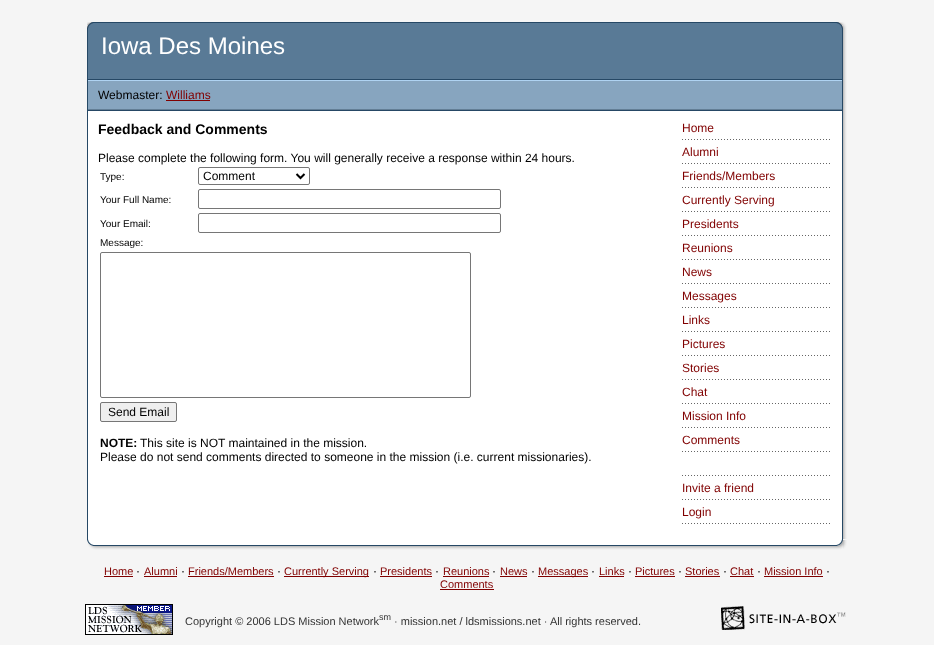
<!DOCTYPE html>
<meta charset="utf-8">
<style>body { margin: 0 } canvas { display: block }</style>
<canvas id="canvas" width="934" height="645"></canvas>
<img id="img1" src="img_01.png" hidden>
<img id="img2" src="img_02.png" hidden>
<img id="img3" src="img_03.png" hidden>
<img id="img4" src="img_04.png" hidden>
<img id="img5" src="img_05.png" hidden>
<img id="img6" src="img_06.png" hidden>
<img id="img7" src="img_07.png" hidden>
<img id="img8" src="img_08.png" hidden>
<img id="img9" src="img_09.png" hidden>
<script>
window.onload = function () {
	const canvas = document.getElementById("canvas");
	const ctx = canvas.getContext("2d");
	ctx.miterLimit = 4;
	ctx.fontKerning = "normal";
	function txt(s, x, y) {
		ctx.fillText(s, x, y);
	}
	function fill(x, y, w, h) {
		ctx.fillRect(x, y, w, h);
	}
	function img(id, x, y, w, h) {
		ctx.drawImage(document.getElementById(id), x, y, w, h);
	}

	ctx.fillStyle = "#F5F5F5";
	fill(0, 0, 934, 645);
	img("img1", 87, 22, 756, 7);
	img("img2", 843, 22, 4, 7);
	ctx.fillStyle = "#264865";
	fill(87, 29, 1, 510);
	ctx.fillStyle = "#597A96";
	fill(88, 29, 754, 50);
	ctx.fillStyle = "#264865";
	fill(842, 29, 1, 510);
	img("img3", 843, 29, 4, 82);
	fill(88, 79, 754, 1);
	ctx.fillStyle = "#AFD3F2";
	fill(88, 80, 754, 1);
	ctx.fillStyle = "#87A5BF";
	fill(88, 81, 754, 28);
	ctx.fillStyle = "#800000";
	fill(166, 100, 44, 1);
	ctx.fillStyle = "#637E95";
	fill(88, 109, 754, 1);
	ctx.fillStyle = "#264865";
	fill(88, 110, 754, 1);
	ctx.fillStyle = "#FFFFFF";
	fill(88, 111, 754, 428);
	ctx.beginPath();
	ctx.roundRect(198.5, 167.5, 111, 17, 1.5);
	ctx.strokeStyle = "#767676";
	ctx.stroke();
	ctx.beginPath();
	ctx.moveTo(296.5, 174);
	ctx.lineTo(300.5, 178);
	ctx.lineTo(304.5, 174);
	ctx.strokeStyle = "#000000";
	ctx.lineWidth = 2;
	ctx.stroke();
	ctx.beginPath();
	ctx.roundRect(198.5, 189.5, 302, 19, 1.5);
	ctx.strokeStyle = "#767676";
	ctx.lineWidth = 1;
	ctx.stroke();
	ctx.beginPath();
	ctx.roundRect(198.5, 213.5, 302, 19, 1.5);
	ctx.stroke();
	ctx.beginPath();
	ctx.roundRect(100.5, 252.5, 370, 145, 1.5);
	ctx.stroke();
	ctx.fillStyle = "#EFEFEF";
	ctx.beginPath();
	ctx.roundRect(100.5, 402.5, 76, 19, 1.5);
	ctx.fill();
	ctx.stroke();
	img("img4", 682, 139, 148, 1);
	img("img4", 682, 163, 148, 1);
	img("img4", 682, 187, 148, 1);
	img("img4", 682, 211, 148, 1);
	img("img4", 682, 235, 148, 1);
	img("img4", 682, 259, 148, 1);
	img("img4", 682, 283, 148, 1);
	img("img4", 682, 307, 148, 1);
	img("img4", 682, 331, 148, 1);
	img("img4", 682, 355, 148, 1);
	img("img4", 682, 379, 148, 1);
	img("img4", 682, 403, 148, 1);
	img("img4", 682, 427, 148, 1);
	img("img4", 682, 451, 148, 1);
	img("img4", 682, 475, 148, 1);
	img("img4", 682, 499, 148, 1);
	img("img4", 682, 523, 148, 1);
	img("img5", 843, 111, 4, 428);
	img("img6", 87, 539, 756, 11);
	img("img7", 843, 540, 4, 9);
	ctx.fillStyle = "#800000";
	fill(104, 576, 29, 1);
	fill(144, 576, 33, 1);
	fill(188, 576, 86, 1);
	fill(284, 576, 85, 1);
	fill(380, 576, 52, 1);
	fill(443, 576, 46, 1);
	fill(500, 576, 27, 1);
	fill(538, 576, 50, 1);
	fill(599, 576, 25, 1);
	fill(635, 576, 40, 1);
	fill(685, 576, 35, 1);
	fill(730, 576, 24, 1);
	fill(764, 576, 59, 1);
	fill(440, 589, 54, 1);
	img("img8", 85, 604, 88, 31);
	img("img9", 721, 606, 125, 24);
	ctx.font = "24px Liberation Sans";
	ctx.fillStyle = "#FFFFFF";
	txt("Iowa Des Moines", 101, 54);
	ctx.font = "12px Liberation Sans";
	ctx.fillStyle = "#000000";
	txt("Webmaster:", 98, 99);
	ctx.fillStyle = "#800000";
	txt("Williams", 166, 99);
	ctx.font = "bold 14px Liberation Sans";
	ctx.fillStyle = "#000000";
	txt("Feedback and Comments", 98, 134);
	ctx.font = "12px Liberation Sans";
	txt("Please complete the following form. You will generally receive a response within 24 hours.", 98, 162);
	ctx.font = "10px Liberation Sans";
	txt("Type:", 100, 180);
	ctx.font = "12px Liberation Sans";
	txt("Comment", 203, 180);
	ctx.font = "10px Liberation Sans";
	txt("Your Full Name:", 100, 203);
	txt("Your Email:", 100, 227);
	txt("Message:", 100, 246);
	ctx.font = "12px Liberation Sans";
	txt("Send Email", 108, 416);
	ctx.font = "bold 12px Liberation Sans";
	txt("NOTE:", 100, 447);
	ctx.font = "12px Liberation Sans";
	txt("This site is NOT maintained in the mission.", 140, 447);
	txt("Please do not send comments directed to someone in the mission (i.e. current missionaries).", 100, 461);
	ctx.fillStyle = "#800000";
	txt("Home", 682, 132);
	txt("Alumni", 682, 156);
	txt("Friends/Members", 682, 180);
	txt("Currently Serving", 682, 204);
	txt("Presidents", 682, 228);
	txt("Reunions", 682, 252);
	txt("News", 682, 276);
	txt("Messages", 682, 300);
	txt("Links", 682, 324);
	txt("Pictures", 682, 348);
	txt("Stories", 682, 372);
	txt("Chat", 682, 396);
	txt("Mission Info", 682, 420);
	txt("Comments", 682, 444);
	txt("Invite a friend", 682, 492);
	txt("Login", 682, 516);
	ctx.font = "11px Liberation Sans";
	txt("Home", 104, 575);
	ctx.font = "12px Liberation Sans";
	ctx.fillStyle = "#000000";
	txt("·", 136, 575);
	ctx.font = "11px Liberation Sans";
	ctx.fillStyle = "#800000";
	txt("Alumni", 144, 575);
	ctx.font = "12px Liberation Sans";
	ctx.fillStyle = "#000000";
	txt("·", 181, 575);
	ctx.font = "11px Liberation Sans";
	ctx.fillStyle = "#800000";
	txt("Friends/Members", 188, 575);
	ctx.font = "12px Liberation Sans";
	ctx.fillStyle = "#000000";
	txt("·", 277, 575);
	ctx.font = "11px Liberation Sans";
	ctx.fillStyle = "#800000";
	txt("Currently Serving", 284, 575);
	ctx.font = "12px Liberation Sans";
	ctx.fillStyle = "#000000";
	txt("·", 373, 575);
	ctx.font = "11px Liberation Sans";
	ctx.fillStyle = "#800000";
	txt("Presidents", 380, 575);
	ctx.font = "12px Liberation Sans";
	ctx.fillStyle = "#000000";
	txt("·", 435, 575);
	ctx.font = "11px Liberation Sans";
	ctx.fillStyle = "#800000";
	txt("Reunions", 443, 575);
	ctx.font = "12px Liberation Sans";
	ctx.fillStyle = "#000000";
	txt("·", 492, 575);
	ctx.font = "11px Liberation Sans";
	ctx.fillStyle = "#800000";
	txt("News", 500, 575);
	ctx.font = "12px Liberation Sans";
	ctx.fillStyle = "#000000";
	txt("·", 531, 575);
	ctx.font = "11px Liberation Sans";
	ctx.fillStyle = "#800000";
	txt("Messages", 538, 575);
	ctx.font = "12px Liberation Sans";
	ctx.fillStyle = "#000000";
	txt("·", 591, 575);
	ctx.font = "11px Liberation Sans";
	ctx.fillStyle = "#800000";
	txt("Links", 599, 575);
	ctx.font = "12px Liberation Sans";
	ctx.fillStyle = "#000000";
	txt("·", 628, 575);
	ctx.font = "11px Liberation Sans";
	ctx.fillStyle = "#800000";
	txt("Pictures", 635, 575);
	ctx.font = "12px Liberation Sans";
	ctx.fillStyle = "#000000";
	txt("·", 678, 575);
	ctx.font = "11px Liberation Sans";
	ctx.fillStyle = "#800000";
	txt("Stories", 685, 575);
	ctx.font = "12px Liberation Sans";
	ctx.fillStyle = "#000000";
	txt("·", 723, 575);
	ctx.font = "11px Liberation Sans";
	ctx.fillStyle = "#800000";
	txt("Chat", 730, 575);
	ctx.font = "12px Liberation Sans";
	ctx.fillStyle = "#000000";
	txt("·", 757, 575);
	ctx.font = "11px Liberation Sans";
	ctx.fillStyle = "#800000";
	txt("Mission Info", 764, 575);
	ctx.font = "12px Liberation Sans";
	ctx.fillStyle = "#000000";
	txt("·", 826, 575);
	ctx.font = "11px Liberation Sans";
	ctx.fillStyle = "#800000";
	txt("Comments", 440, 588);
	ctx.fillStyle = "#333333";
	txt("Copyright © 2006 LDS Mission Network", 185, 625);
	ctx.font = "9px Liberation Sans";
	txt("sm", 379, 620);
	ctx.font = "11px Liberation Sans";
	txt("· mission.net / ldsmissions.net · All rights reserved.", 394, 625);
};
</script>
